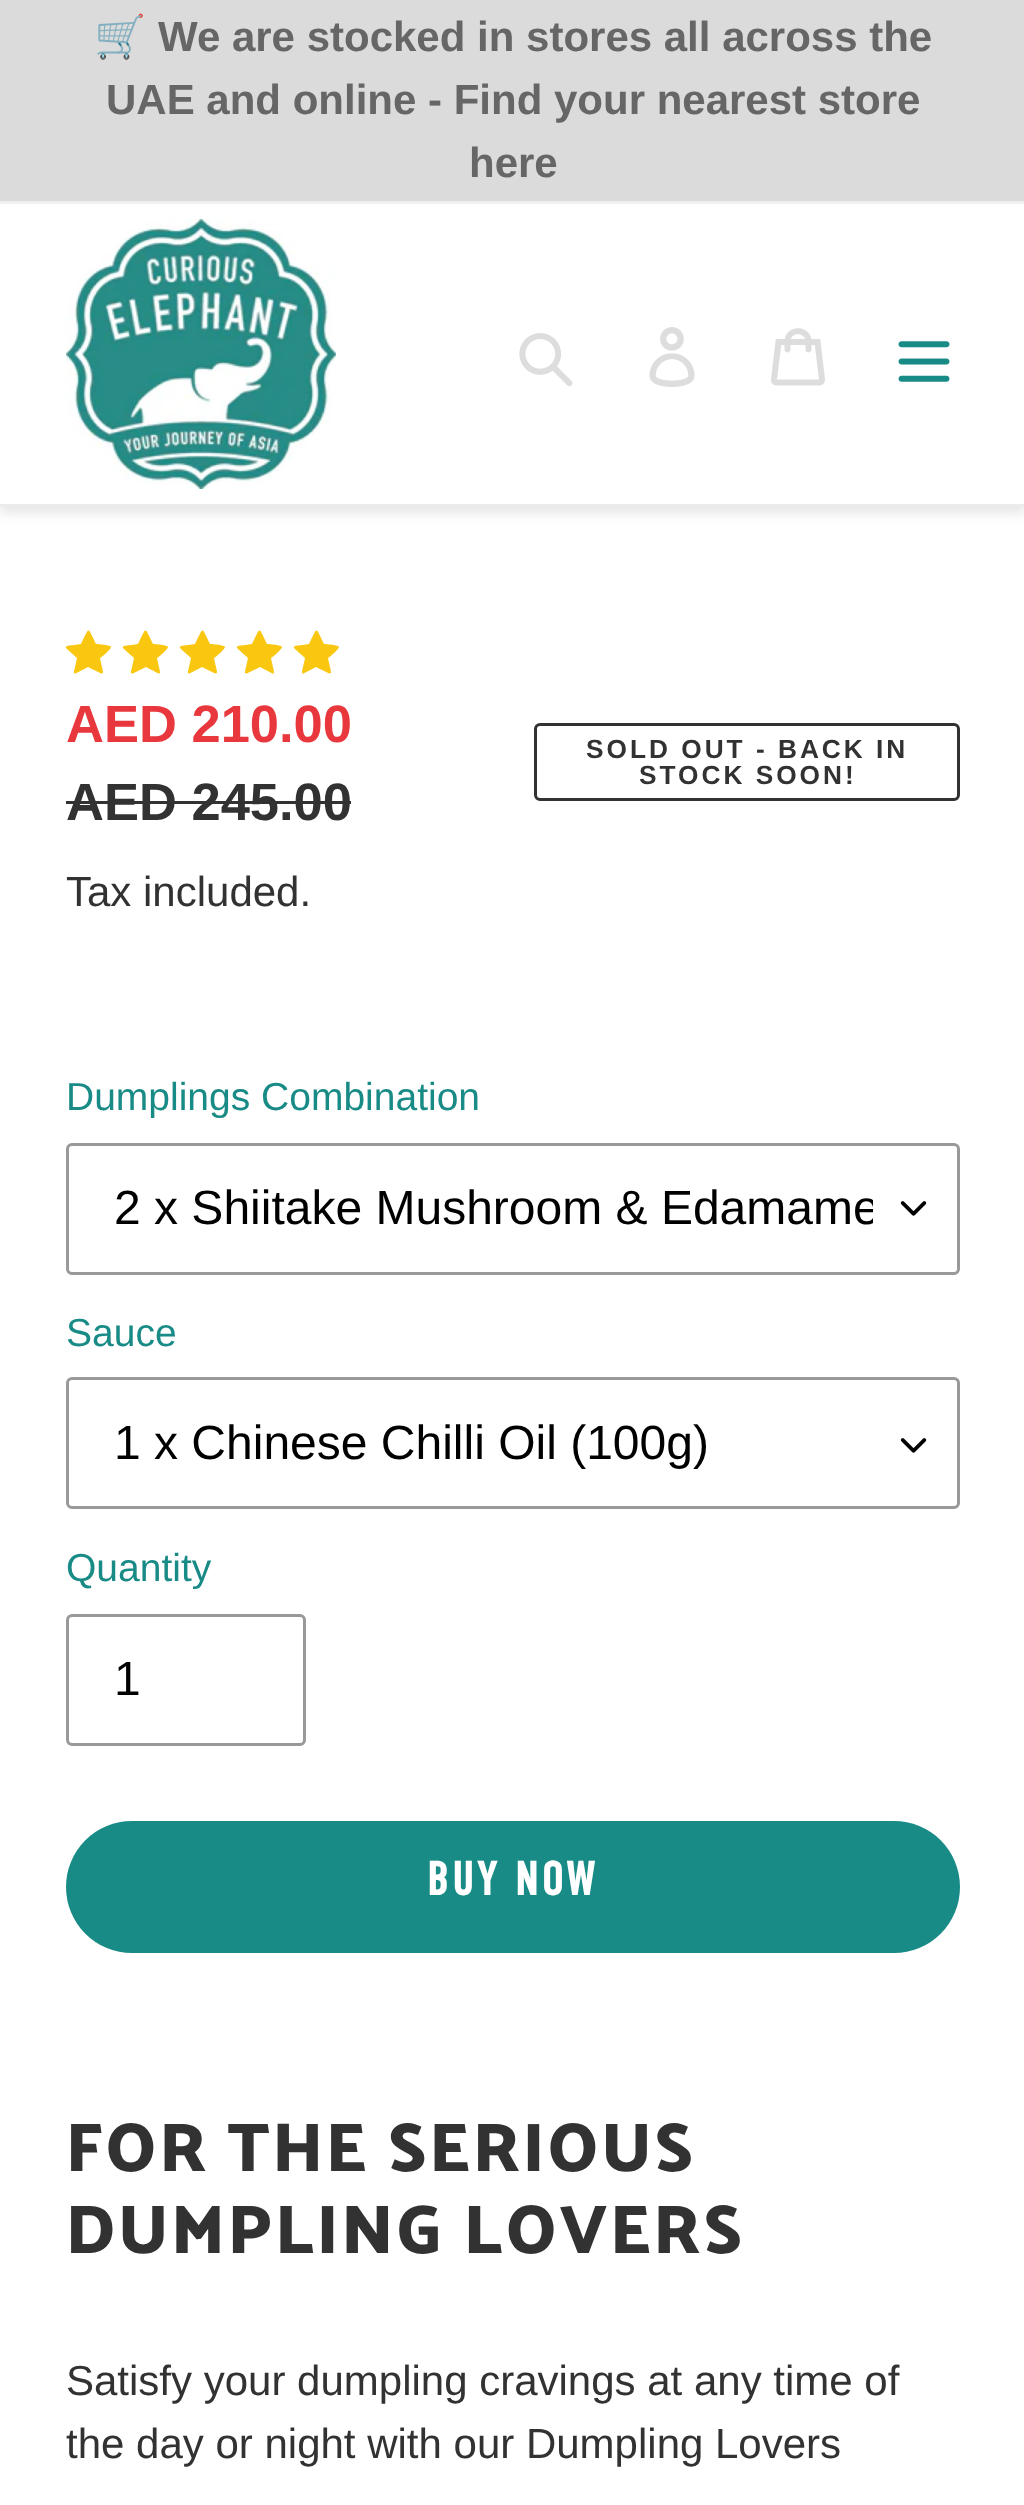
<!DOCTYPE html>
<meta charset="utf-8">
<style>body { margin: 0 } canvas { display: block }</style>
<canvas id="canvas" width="1024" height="2505"></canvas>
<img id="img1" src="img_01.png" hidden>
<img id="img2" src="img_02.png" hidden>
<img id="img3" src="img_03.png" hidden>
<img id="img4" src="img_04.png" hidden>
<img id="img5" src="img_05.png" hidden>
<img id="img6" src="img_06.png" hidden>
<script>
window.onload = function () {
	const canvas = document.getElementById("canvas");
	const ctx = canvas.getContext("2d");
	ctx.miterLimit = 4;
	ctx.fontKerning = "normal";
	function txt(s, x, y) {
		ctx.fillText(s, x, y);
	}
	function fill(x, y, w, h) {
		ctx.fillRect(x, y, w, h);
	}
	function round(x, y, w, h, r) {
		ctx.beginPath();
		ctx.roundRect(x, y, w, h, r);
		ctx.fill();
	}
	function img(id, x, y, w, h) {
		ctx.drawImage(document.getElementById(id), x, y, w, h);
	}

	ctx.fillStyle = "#FFFFFF";
	fill(0, 0, 1024, 2505);
	ctx.fillStyle = "rgba(0, 0, 0, 0.1)";
	ctx.filter = "blur(6px)";
	ctx.beginPath();
	ctx.rect(0, 6, 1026, 507);
	ctx.fill();
	ctx.filter = "none";
	ctx.fillStyle = "#FFFFFF";
	fill(0, 204, 1024, 300);
	ctx.fillStyle = "#F1F1F1";
	fill(0, 201, 1024, 3);
	ctx.fillStyle = "#DBDBDB";
	fill(0, 0, 1024, 201);
	ctx.fillStyle = "#EBEBEB";
	fill(0, 504, 1024, 3);
	img("img1", 66, 219, 270, 270);
	img("img2", 519, 333, 54, 54);
	img("img3", 649, 327, 46, 60);
	img("img4", 771, 328, 54, 58);
	img("img5", 898, 341, 52, 41);
	ctx.fillStyle = "#F9C70F";
	ctx.beginPath();
	ctx.moveTo(111, 647);
	ctx.bezierCurveTo(111, 645, 98, 644, 96, 644);
	ctx.bezierCurveTo(87, 626, 90, 626, 81, 644);
	ctx.bezierCurveTo(61, 647, 62, 644, 77, 658);
	ctx.bezierCurveTo(73, 678, 70, 676, 88, 667);
	ctx.bezierCurveTo(107, 676, 104, 678, 100, 658);
	ctx.bezierCurveTo(102, 657, 111, 649, 111, 647);
	ctx.closePath();
	ctx.fill();
	ctx.beginPath();
	ctx.moveTo(168, 647);
	ctx.bezierCurveTo(168, 645, 155, 644, 153, 644);
	ctx.bezierCurveTo(144, 626, 147, 626, 138, 644);
	ctx.bezierCurveTo(118, 647, 119, 644, 134, 658);
	ctx.bezierCurveTo(130, 678, 127, 676, 146, 667);
	ctx.bezierCurveTo(164, 676, 161, 678, 157, 658);
	ctx.bezierCurveTo(159, 657, 168, 649, 168, 647);
	ctx.closePath();
	ctx.fill();
	ctx.beginPath();
	ctx.moveTo(225, 647);
	ctx.bezierCurveTo(225, 645, 212, 644, 210, 644);
	ctx.bezierCurveTo(201, 626, 204, 626, 195, 644);
	ctx.bezierCurveTo(175, 647, 176, 644, 191, 658);
	ctx.bezierCurveTo(187, 678, 184, 676, 202, 667);
	ctx.bezierCurveTo(221, 676, 218, 678, 214, 658);
	ctx.bezierCurveTo(216, 657, 225, 649, 225, 647);
	ctx.closePath();
	ctx.fill();
	ctx.beginPath();
	ctx.moveTo(282, 647);
	ctx.bezierCurveTo(282, 645, 269, 644, 267, 644);
	ctx.bezierCurveTo(258, 626, 261, 626, 252, 644);
	ctx.bezierCurveTo(232, 647, 233, 644, 248, 658);
	ctx.bezierCurveTo(244, 678, 241, 676, 260, 667);
	ctx.bezierCurveTo(278, 676, 275, 678, 271, 658);
	ctx.bezierCurveTo(273, 657, 282, 649, 282, 647);
	ctx.closePath();
	ctx.fill();
	ctx.beginPath();
	ctx.moveTo(339, 647);
	ctx.bezierCurveTo(339, 645, 326, 644, 324, 644);
	ctx.bezierCurveTo(315, 626, 318, 626, 309, 644);
	ctx.bezierCurveTo(289, 647, 290, 644, 305, 658);
	ctx.bezierCurveTo(301, 678, 298, 676, 316, 667);
	ctx.bezierCurveTo(335, 676, 332, 678, 328, 658);
	ctx.bezierCurveTo(330, 657, 339, 649, 339, 647);
	ctx.closePath();
	ctx.fill();
	ctx.fillStyle = "#333232";
	fill(66, 801, 285, 3);
	ctx.beginPath();
	ctx.roundRect(535.5, 724.5, 423, 75, 4.5);
	ctx.strokeStyle = "#333232";
	ctx.lineWidth = 3;
	ctx.stroke();
	img("img6", 900, 1201, 27, 15);
	ctx.beginPath();
	ctx.roundRect(67.5, 1144.5, 891, 129, 4.5);
	ctx.strokeStyle = "#999999";
	ctx.stroke();
	img("img6", 900, 1438, 27, 15);
	ctx.beginPath();
	ctx.roundRect(67.5, 1378.5, 891, 129, 4.5);
	ctx.stroke();
	ctx.beginPath();
	ctx.roundRect(67.5, 1615.5, 237, 129, 4.5);
	ctx.stroke();
	ctx.fillStyle = "#198B86";
	round(66, 1821, 894, 132, 66);
	ctx.font = "bold 42px Noto Color Emoji";
	ctx.fillStyle = "#666666";
	txt("🛒", 94, 51);
	ctx.font = "bold 42px Liberation Sans";
	txt("We are stocked in stores all across the", 158, 51);
	txt("UAE and online - Find your nearest store", 106, 114);
	txt("here", 469, 177);
	ctx.font = "bold 52.5px Liberation Sans";
	ctx.fillStyle = "#E8383D";
	txt("AED 210.00", 66, 742);
	ctx.fillStyle = "#333232";
	txt("AED 245.00", 66, 820);
	ctx.letterSpacing = "3px";
	ctx.font = "bold 26.25px Liberation Sans";
	txt("SOLD OUT - BACK IN", 586, 758);
	txt("STOCK SOON!", 639, 784);
	ctx.letterSpacing = "0px";
	ctx.font = "42px Liberation Sans";
	txt("Tax included.", 66, 906);
	ctx.font = "39px Liberation Sans";
	ctx.fillStyle = "#198B86";
	txt("Dumplings Combination", 66, 1110);
	ctx.save();
	ctx.beginPath();
	ctx.rect(114, 1179, 759, 57);
	ctx.clip();
	ctx.font = "48px Liberation Sans";
	ctx.fillStyle = "#000000";
	txt("2 x Shiitake Mushroom & Edamame", 114, 1224);
	ctx.restore();
	txt("Sauce", 66, 1346);
	ctx.font = "48px Liberation Sans";
	ctx.fillStyle = "#000000";
	txt("1 x Chinese Chilli Oil (100g)", 114, 1459);
	ctx.font = "39px Liberation Sans";
	ctx.fillStyle = "#198B86";
	txt("Quantity", 66, 1581);
	ctx.font = "48px Liberation Sans";
	ctx.fillStyle = "#000000";
	txt("1", 114, 1695);
	ctx.letterSpacing = "3.75px";
	ctx.font = "bold 47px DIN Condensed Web";
	ctx.fillStyle = "#FFFFFF";
	txt("BUY NOW", 427, 1895);
	ctx.letterSpacing = "3px";
	ctx.font = "600 69px Palanquin Dark";
	ctx.fillStyle = "#333232";
	txt("FOR THE SERIOUS", 66, 2171);
	txt("DUMPLING LOVERS", 66, 2253);
	ctx.letterSpacing = "0px";
	ctx.font = "42px Liberation Sans";
	txt("Satisfy your dumpling cravings at any time of", 66, 2395);
	txt("the day or night with our Dumpling Lovers", 66, 2458);
};
</script>
